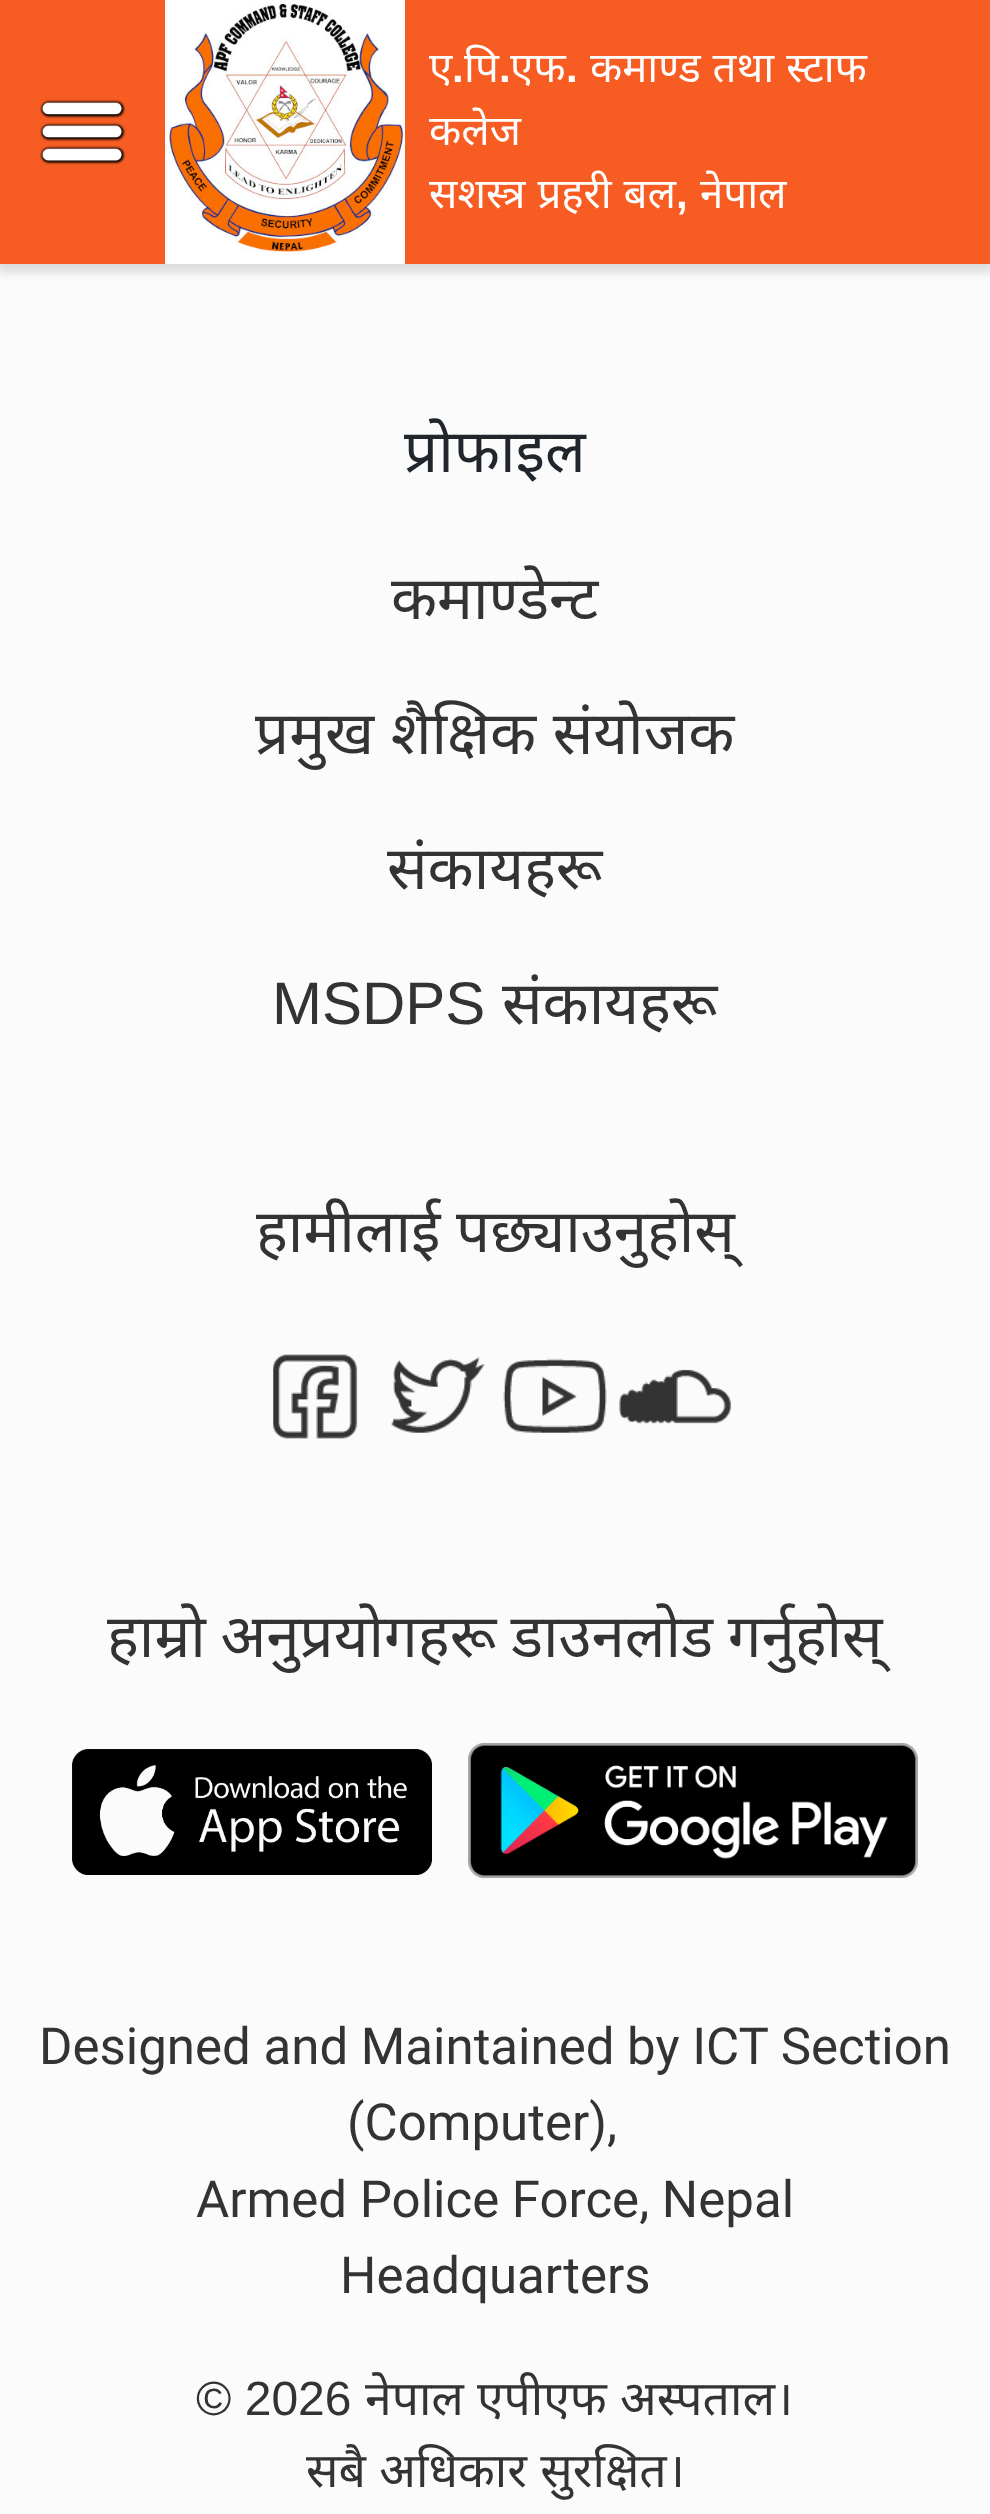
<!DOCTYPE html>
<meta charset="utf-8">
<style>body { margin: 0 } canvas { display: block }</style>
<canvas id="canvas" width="990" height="2514"></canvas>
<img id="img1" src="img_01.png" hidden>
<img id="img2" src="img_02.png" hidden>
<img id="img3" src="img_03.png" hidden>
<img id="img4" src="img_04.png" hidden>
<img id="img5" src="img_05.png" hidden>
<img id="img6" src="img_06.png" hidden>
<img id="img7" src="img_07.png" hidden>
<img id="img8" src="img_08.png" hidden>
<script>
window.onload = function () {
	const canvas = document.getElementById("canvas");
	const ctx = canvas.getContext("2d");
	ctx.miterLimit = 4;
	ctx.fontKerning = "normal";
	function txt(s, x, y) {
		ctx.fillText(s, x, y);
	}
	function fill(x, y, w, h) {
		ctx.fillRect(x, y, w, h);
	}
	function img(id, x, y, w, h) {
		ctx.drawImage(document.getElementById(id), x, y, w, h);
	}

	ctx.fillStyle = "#FBFBFB";
	fill(0, 0, 990, 2514);
	ctx.fillStyle = "#DDDDDD";
	ctx.filter = "blur(4.5px)";
	ctx.beginPath();
	ctx.rect(-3, 3, 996, 270);
	ctx.fill();
	ctx.filter = "none";
	ctx.fillStyle = "#F75D23";
	fill(0, 0, 990, 264);
	img("img1", 39, 99, 87, 66);
	img("img2", 165, 0, 240, 264);
	img("img3", 273, 1354, 85, 85);
	img("img4", 391, 1357, 94, 76);
	img("img5", 503, 1358, 104, 75);
	img("img6", 619, 1369, 113, 55);
	img("img7", 72, 1749, 360, 126);
	img("img8", 468, 1743, 450, 135);
	ctx.font = "42px Noto Sans";
	ctx.fillStyle = "#FFFFFF";
	txt("ए", 429, 82);
	ctx.font = "bold 42px Liberation Sans";
	txt(".", 452, 82);
	ctx.font = "42px Noto Sans";
	txt("पि", 464, 82);
	ctx.font = "bold 42px Liberation Sans";
	txt(".", 499, 82);
	ctx.font = "42px Noto Sans";
	txt("एफ", 510, 82);
	ctx.font = "bold 42px Liberation Sans";
	txt(".", 566, 82);
	ctx.wordSpacing = "1px";
	ctx.font = "42px Noto Sans";
	txt("कमाण्ड तथा स्टाफ", 590, 82);
	ctx.wordSpacing = "0px";
	txt("कलेज", 429, 145);
	ctx.wordSpacing = "1px";
	txt("सशस्त्र प्रहरी बल", 429, 208);
	ctx.wordSpacing = "0px";
	ctx.font = "bold 42px Liberation Sans";
	txt(",", 676, 208);
	ctx.font = "42px Noto Sans";
	txt("नेपाल", 700, 208);
	ctx.font = "60px Noto Sans";
	ctx.fillStyle = "#21262C";
	txt("प्रोफाइल", 404, 472);
	ctx.fillStyle = "#333333";
	txt("कमाण्डेन्ट", 391, 619);
	ctx.wordSpacing = "1px";
	txt("प्रमुख शैक्षिक संयोजक", 255, 754);
	ctx.wordSpacing = "0px";
	txt("संकायहरू", 387, 889);
	ctx.font = "60px Liberation Sans";
	txt("MSDPS", 272, 1024);
	ctx.font = "60px Noto Sans";
	txt("संकायहरू", 502, 1024);
	txt("हामीलाई पछ्याउनुहोस्", 256, 1252);
	ctx.wordSpacing = "-1px";
	txt("हाम्रो अनुप्रयोगहरू डाउनलोड गर्नुहोस्", 107, 1657);
	ctx.wordSpacing = "0px";
	ctx.font = "51px Roboto";
	txt("Designed and Maintained by ICT Section", 39, 2064);
	txt("(Computer),", 347, 2140);
	txt("Armed Police Force, Nepal", 196, 2217);
	txt("Headquarters", 340, 2293);
	ctx.font = "48px Liberation Sans";
	txt("© 2026", 196, 2415);
	ctx.font = "48px Noto Sans";
	txt("नेपाल", 365, 2415);
	txt("एपीएफ", 477, 2415);
	txt("अस्पताल।", 620, 2415);
	ctx.wordSpacing = "1px";
	txt("सबै अधिकार सुरक्षित।", 306, 2487);
};
</script>
